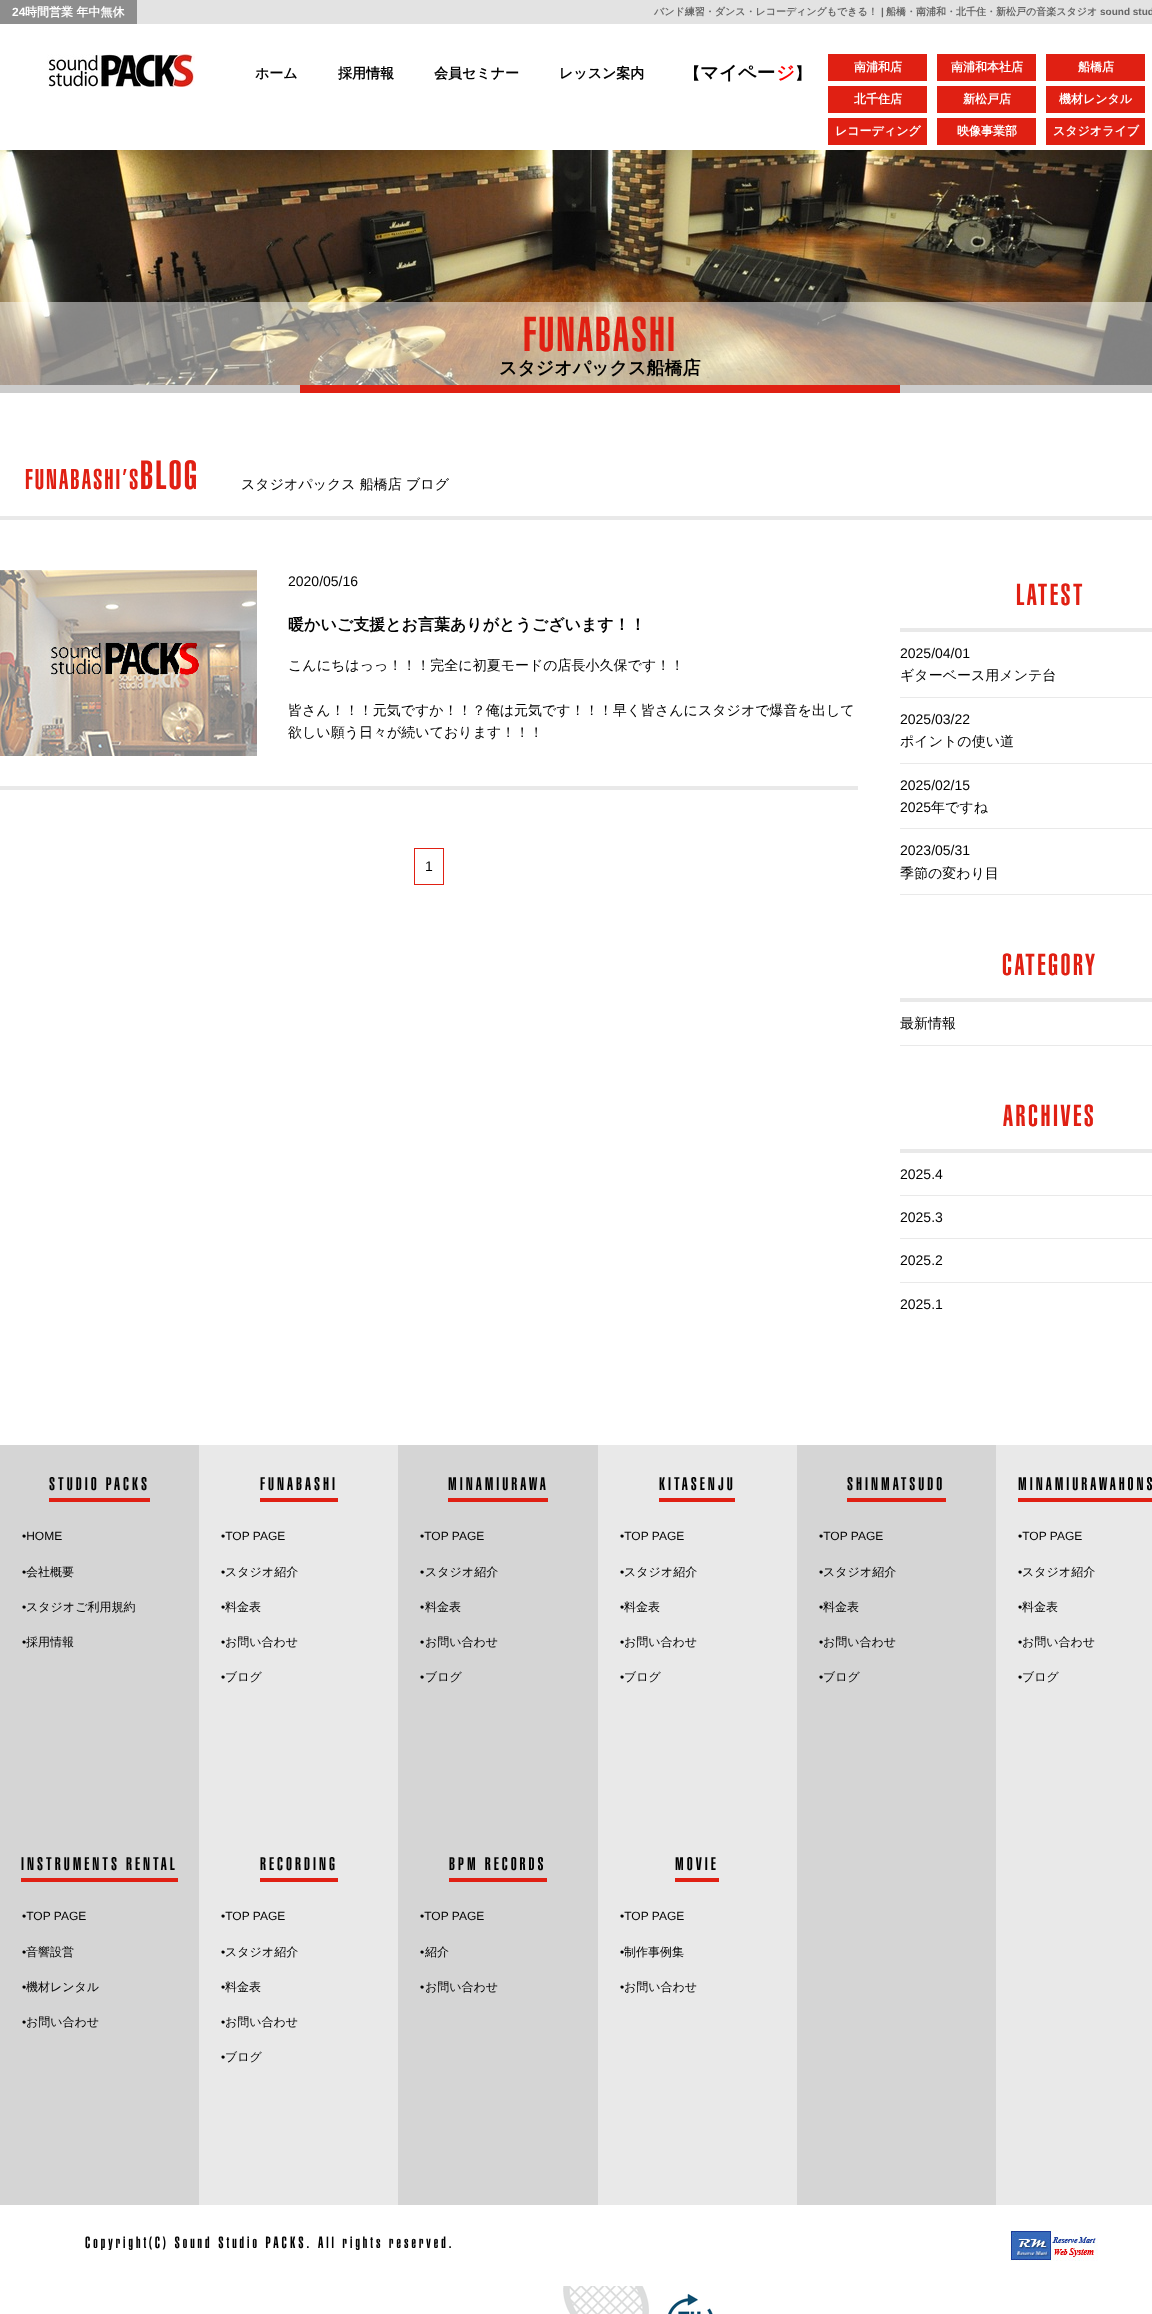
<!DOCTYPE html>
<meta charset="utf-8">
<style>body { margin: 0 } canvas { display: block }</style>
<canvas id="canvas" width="1152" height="2314"></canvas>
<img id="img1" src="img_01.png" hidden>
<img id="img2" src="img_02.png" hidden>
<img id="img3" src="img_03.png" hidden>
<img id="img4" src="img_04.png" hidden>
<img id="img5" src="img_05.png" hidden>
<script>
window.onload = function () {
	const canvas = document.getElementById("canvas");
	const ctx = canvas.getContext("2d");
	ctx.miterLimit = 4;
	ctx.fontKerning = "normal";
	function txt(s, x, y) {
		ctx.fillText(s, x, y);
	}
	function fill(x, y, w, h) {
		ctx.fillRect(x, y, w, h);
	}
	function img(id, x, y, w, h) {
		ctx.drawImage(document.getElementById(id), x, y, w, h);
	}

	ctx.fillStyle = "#FFFFFF";
	fill(0, 0, 1152, 2314);
	ctx.fillStyle = "#E3E3E3";
	fill(137, 0, 1015, 24);
	ctx.fillStyle = "#8E8E8E";
	fill(0, 0, 137, 24);
	img("img1", 47, 54, 148, 33);
	ctx.fillStyle = "#E02013";
	fill(828, 54, 99, 27);
	fill(937, 54, 99, 27);
	fill(1046, 54, 99, 27);
	fill(828, 86, 99, 27);
	fill(937, 86, 99, 27);
	fill(1046, 86, 99, 27);
	fill(828, 118, 99, 27);
	fill(937, 118, 99, 27);
	fill(1046, 118, 99, 27);
	ctx.fillStyle = "#CCCCCC";
	fill(0, 385, 1152, 8);
	img("img2", 0, 150, 1152, 235);
	ctx.fillStyle = "rgba(255, 255, 255, 0.49)";
	fill(0, 302, 1152, 83);
	ctx.fillStyle = "#E02013";
	fill(300, 385, 600, 8);
	ctx.fillStyle = "#E9E9E9";
	fill(0, 516, 1152, 4);
	fill(0, 786, 858, 4);
	img("img3", 0, 570, 257, 186);
	ctx.strokeStyle = "#E02013";
	ctx.strokeRect(414.5, 848.5, 29, 36);
	fill(900, 628, 252, 4);
	fill(900, 697, 252, 1);
	fill(900, 763, 252, 1);
	fill(900, 828, 252, 1);
	fill(900, 894, 252, 1);
	fill(900, 998, 252, 4);
	fill(900, 1045, 252, 1);
	fill(900, 1149, 252, 4);
	fill(900, 1195, 252, 1);
	fill(900, 1238, 252, 1);
	fill(900, 1282, 252, 1);
	ctx.fillStyle = "#D5D5D5";
	fill(0, 1445, 199, 760);
	ctx.fillStyle = "#E02013";
	fill(49, 1498, 101, 4);
	ctx.fillStyle = "#E9E9E9";
	fill(199, 1445, 199, 760);
	ctx.fillStyle = "#E02013";
	fill(260, 1498, 78, 4);
	ctx.fillStyle = "#D5D5D5";
	fill(398, 1445, 200, 760);
	ctx.fillStyle = "#E02013";
	fill(448, 1498, 100, 4);
	ctx.fillStyle = "#E9E9E9";
	fill(598, 1445, 199, 760);
	ctx.fillStyle = "#E02013";
	fill(659, 1498, 76, 4);
	ctx.fillStyle = "#D5D5D5";
	fill(797, 1445, 199, 760);
	ctx.fillStyle = "#E02013";
	fill(847, 1498, 99, 4);
	ctx.fillStyle = "#E9E9E9";
	fill(996, 1445, 156, 760);
	ctx.fillStyle = "#E02013";
	fill(1018, 1498, 134, 4);
	fill(21, 1878, 157, 4);
	fill(260, 1878, 78, 4);
	fill(449, 1878, 98, 4);
	fill(675, 1878, 44, 4);
	img("img4", 1010, 2230, 88, 31);
	img("img5", 563, 2286, 150, 28);
	ctx.font = "bold 12px Liberation Sans";
	ctx.fillStyle = "#FFFFFF";
	txt("24", 12, 16);
	ctx.font = "bold 12px WenQuanYi Zen Hei";
	txt("時間営業 年中無休", 25, 16);
	ctx.font = "bold 10px WenQuanYi Zen Hei";
	ctx.fillStyle = "#666666";
	txt("バンド練習・ダンス・レコーディングもできる！", 654, 15);
	ctx.font = "bold 10px Liberation Sans";
	txt("|", 881, 15);
	ctx.font = "bold 10px WenQuanYi Zen Hei";
	txt("船橋・南浦和・北千住・新松戸の音楽スタジオ", 886, 15);
	ctx.font = "bold 10px Liberation Sans";
	txt("sound stud", 1100, 15);
	ctx.font = "bold 14px WenQuanYi Zen Hei";
	ctx.fillStyle = "#000000";
	txt("ホーム", 255, 78);
	txt("採用情報", 338, 78);
	txt("会員セミナー", 434, 78);
	txt("レッスン案内", 559, 78);
	ctx.font = "bold 16px WenQuanYi Zen Hei";
	txt("【", 684, 79);
	ctx.font = "bold 18.5px WenQuanYi Zen Hei";
	txt("マイペー", 700, 79);
	ctx.fillStyle = "#FF0000";
	txt("ジ", 776, 79);
	ctx.font = "bold 16px WenQuanYi Zen Hei";
	ctx.fillStyle = "#000000";
	txt("】", 795, 79);
	ctx.font = "bold 12px WenQuanYi Zen Hei";
	ctx.fillStyle = "#FFFFFF";
	txt("南浦和店", 854, 71);
	txt("南浦和本社店", 951, 71);
	txt("船橋店", 1078, 71);
	txt("北千住店", 854, 103);
	txt("新松戸店", 963, 103);
	txt("機材レンタル", 1059, 103);
	txt("レコーディング", 835, 135);
	txt("映像事業部", 957, 135);
	txt("スタジオライブ", 1053, 135);
	ctx.letterSpacing = "2px";
	ctx.font = "500 48px Helvetica";
	ctx.fillStyle = "#E02013";
	txt("FUNABASHI", 523, 351);
	ctx.letterSpacing = "0px";
	ctx.font = "bold 18px WenQuanYi Zen Hei";
	ctx.fillStyle = "#000000";
	txt("スタジオパックス船橋店", 499, 374);
	ctx.letterSpacing = "2px";
	ctx.font = "500 28px Helvetica";
	ctx.fillStyle = "#E02013";
	txt("FUNABASHI’S", 25, 489);
	ctx.font = "500 40px Helvetica";
	txt("BLOG", 140, 489);
	ctx.letterSpacing = "0px";
	ctx.font = "500 14px WenQuanYi Zen Hei";
	ctx.fillStyle = "#000000";
	txt("スタジオパックス 船橋店 ブログ", 241, 489);
	ctx.font = "14px Liberation Sans";
	txt("2020/05/16", 288, 586);
	ctx.font = "bold 16px WenQuanYi Zen Hei";
	txt("暖かいご支援とお言葉ありがとうございます！！", 288, 630);
	ctx.font = "500 14px WenQuanYi Zen Hei";
	txt("こんにちはっっ！！！完全に初夏モードの店長小久保です！！", 288, 670);
	txt("皆さん！！！元気ですか！！？俺は元気です！！！早く皆さんにスタジオで爆音を出して", 288, 715);
	txt("欲しい願う日々が続いております！！！", 288, 737);
	ctx.font = "14px Liberation Sans";
	txt("1", 425, 871);
	ctx.letterSpacing = "2.5px";
	ctx.font = "500 30px Helvetica";
	ctx.fillStyle = "#E02013";
	txt("LATEST", 1016, 605);
	ctx.letterSpacing = "0px";
	ctx.font = "14px Liberation Sans";
	ctx.fillStyle = "#000000";
	txt("2025/04/01", 900, 658);
	ctx.font = "500 14px WenQuanYi Zen Hei";
	txt("ギターベース用メンテ台", 900, 680);
	ctx.font = "14px Liberation Sans";
	txt("2025/03/22", 900, 724);
	ctx.font = "500 14px WenQuanYi Zen Hei";
	txt("ポイントの使い道", 900, 746);
	ctx.font = "14px Liberation Sans";
	txt("2025/02/15", 900, 790);
	txt("2025", 900, 812);
	ctx.font = "500 14px WenQuanYi Zen Hei";
	txt("年ですね", 931, 812);
	ctx.font = "14px Liberation Sans";
	txt("2023/05/31", 900, 855);
	ctx.font = "500 14px WenQuanYi Zen Hei";
	txt("季節の変わり目", 900, 878);
	ctx.letterSpacing = "2.5px";
	ctx.font = "500 30px Helvetica";
	ctx.fillStyle = "#E02013";
	txt("CATEGORY", 1002, 975);
	ctx.letterSpacing = "0px";
	ctx.font = "500 14px WenQuanYi Zen Hei";
	ctx.fillStyle = "#000000";
	txt("最新情報", 900, 1028);
	ctx.letterSpacing = "2.5px";
	ctx.font = "500 30px Helvetica";
	ctx.fillStyle = "#E02013";
	txt("ARCHIVES", 1003, 1126);
	ctx.letterSpacing = "0px";
	ctx.font = "14px Liberation Sans";
	ctx.fillStyle = "#000000";
	txt("2025.4", 900, 1179);
	txt("2025.3", 900, 1222);
	txt("2025.2", 900, 1265);
	txt("2025.1", 900, 1309);
	ctx.letterSpacing = "3px";
	ctx.font = "500 18px Helvetica";
	txt("STUDIO PACKS", 49, 1490);
	ctx.letterSpacing = "0px";
	ctx.font = "12px Liberation Sans";
	txt("•HOME", 22, 1540);
	txt("•", 22, 1576);
	ctx.font = "500 12px WenQuanYi Zen Hei";
	txt("会社概要", 26, 1576);
	ctx.font = "12px Liberation Sans";
	txt("•", 22, 1611);
	ctx.font = "500 12px WenQuanYi Zen Hei";
	txt("スタジオご利用規約", 26, 1611);
	ctx.font = "12px Liberation Sans";
	txt("•", 22, 1646);
	ctx.font = "500 12px WenQuanYi Zen Hei";
	txt("採用情報", 26, 1646);
	ctx.letterSpacing = "3px";
	ctx.font = "500 18px Helvetica";
	txt("FUNABASHI", 260, 1490);
	ctx.letterSpacing = "0px";
	ctx.font = "12px Liberation Sans";
	txt("•TOP PAGE", 221, 1540);
	txt("•", 221, 1576);
	ctx.font = "500 12px WenQuanYi Zen Hei";
	txt("スタジオ紹介", 225, 1576);
	ctx.font = "12px Liberation Sans";
	txt("•", 221, 1611);
	ctx.font = "500 12px WenQuanYi Zen Hei";
	txt("料金表", 225, 1611);
	ctx.font = "12px Liberation Sans";
	txt("•", 221, 1646);
	ctx.font = "500 12px WenQuanYi Zen Hei";
	txt("お問い合わせ", 225, 1646);
	ctx.font = "12px Liberation Sans";
	txt("•", 221, 1681);
	ctx.font = "500 12px WenQuanYi Zen Hei";
	txt("ブログ", 225, 1681);
	ctx.letterSpacing = "3px";
	ctx.font = "500 18px Helvetica";
	txt("MINAMIURAWA", 448, 1490);
	ctx.letterSpacing = "0px";
	ctx.font = "12px Liberation Sans";
	txt("•TOP PAGE", 420, 1540);
	txt("•", 420, 1576);
	ctx.font = "500 12px WenQuanYi Zen Hei";
	txt("スタジオ紹介", 425, 1576);
	ctx.font = "12px Liberation Sans";
	txt("•", 420, 1611);
	ctx.font = "500 12px WenQuanYi Zen Hei";
	txt("料金表", 425, 1611);
	ctx.font = "12px Liberation Sans";
	txt("•", 420, 1646);
	ctx.font = "500 12px WenQuanYi Zen Hei";
	txt("お問い合わせ", 425, 1646);
	ctx.font = "12px Liberation Sans";
	txt("•", 420, 1681);
	ctx.font = "500 12px WenQuanYi Zen Hei";
	txt("ブログ", 425, 1681);
	ctx.letterSpacing = "3px";
	ctx.font = "500 18px Helvetica";
	txt("KITASENJU", 659, 1490);
	ctx.letterSpacing = "0px";
	ctx.font = "12px Liberation Sans";
	txt("•TOP PAGE", 620, 1540);
	txt("•", 620, 1576);
	ctx.font = "500 12px WenQuanYi Zen Hei";
	txt("スタジオ紹介", 624, 1576);
	ctx.font = "12px Liberation Sans";
	txt("•", 620, 1611);
	ctx.font = "500 12px WenQuanYi Zen Hei";
	txt("料金表", 624, 1611);
	ctx.font = "12px Liberation Sans";
	txt("•", 620, 1646);
	ctx.font = "500 12px WenQuanYi Zen Hei";
	txt("お問い合わせ", 624, 1646);
	ctx.font = "12px Liberation Sans";
	txt("•", 620, 1681);
	ctx.font = "500 12px WenQuanYi Zen Hei";
	txt("ブログ", 624, 1681);
	ctx.letterSpacing = "3px";
	ctx.font = "500 18px Helvetica";
	txt("SHINMATSUDO", 847, 1490);
	ctx.letterSpacing = "0px";
	ctx.font = "12px Liberation Sans";
	txt("•TOP PAGE", 819, 1540);
	txt("•", 819, 1576);
	ctx.font = "500 12px WenQuanYi Zen Hei";
	txt("スタジオ紹介", 823, 1576);
	ctx.font = "12px Liberation Sans";
	txt("•", 819, 1611);
	ctx.font = "500 12px WenQuanYi Zen Hei";
	txt("料金表", 823, 1611);
	ctx.font = "12px Liberation Sans";
	txt("•", 819, 1646);
	ctx.font = "500 12px WenQuanYi Zen Hei";
	txt("お問い合わせ", 823, 1646);
	ctx.font = "12px Liberation Sans";
	txt("•", 819, 1681);
	ctx.font = "500 12px WenQuanYi Zen Hei";
	txt("ブログ", 823, 1681);
	ctx.letterSpacing = "3px";
	ctx.font = "500 18px Helvetica";
	txt("MINAMIURAWAHONS", 1018, 1490);
	ctx.letterSpacing = "0px";
	ctx.font = "12px Liberation Sans";
	txt("•TOP PAGE", 1018, 1540);
	txt("•", 1018, 1576);
	ctx.font = "500 12px WenQuanYi Zen Hei";
	txt("スタジオ紹介", 1022, 1576);
	ctx.font = "12px Liberation Sans";
	txt("•", 1018, 1611);
	ctx.font = "500 12px WenQuanYi Zen Hei";
	txt("料金表", 1022, 1611);
	ctx.font = "12px Liberation Sans";
	txt("•", 1018, 1646);
	ctx.font = "500 12px WenQuanYi Zen Hei";
	txt("お問い合わせ", 1022, 1646);
	ctx.font = "12px Liberation Sans";
	txt("•", 1018, 1681);
	ctx.font = "500 12px WenQuanYi Zen Hei";
	txt("ブログ", 1022, 1681);
	ctx.letterSpacing = "3px";
	ctx.font = "500 18px Helvetica";
	txt("INSTRUMENTS RENTAL", 21, 1870);
	ctx.letterSpacing = "0px";
	ctx.font = "12px Liberation Sans";
	txt("•TOP PAGE", 22, 1920);
	txt("•", 22, 1956);
	ctx.font = "500 12px WenQuanYi Zen Hei";
	txt("音響設営", 26, 1956);
	ctx.font = "12px Liberation Sans";
	txt("•", 22, 1991);
	ctx.font = "500 12px WenQuanYi Zen Hei";
	txt("機材レンタル", 26, 1991);
	ctx.font = "12px Liberation Sans";
	txt("•", 22, 2026);
	ctx.font = "500 12px WenQuanYi Zen Hei";
	txt("お問い合わせ", 26, 2026);
	ctx.letterSpacing = "3px";
	ctx.font = "500 18px Helvetica";
	txt("RECORDING", 260, 1870);
	ctx.letterSpacing = "0px";
	ctx.font = "12px Liberation Sans";
	txt("•TOP PAGE", 221, 1920);
	txt("•", 221, 1956);
	ctx.font = "500 12px WenQuanYi Zen Hei";
	txt("スタジオ紹介", 225, 1956);
	ctx.font = "12px Liberation Sans";
	txt("•", 221, 1991);
	ctx.font = "500 12px WenQuanYi Zen Hei";
	txt("料金表", 225, 1991);
	ctx.font = "12px Liberation Sans";
	txt("•", 221, 2026);
	ctx.font = "500 12px WenQuanYi Zen Hei";
	txt("お問い合わせ", 225, 2026);
	ctx.font = "12px Liberation Sans";
	txt("•", 221, 2061);
	ctx.font = "500 12px WenQuanYi Zen Hei";
	txt("ブログ", 225, 2061);
	ctx.letterSpacing = "3px";
	ctx.font = "500 18px Helvetica";
	txt("BPM RECORDS", 449, 1870);
	ctx.letterSpacing = "0px";
	ctx.font = "12px Liberation Sans";
	txt("•TOP PAGE", 420, 1920);
	txt("•", 420, 1956);
	ctx.font = "500 12px WenQuanYi Zen Hei";
	txt("紹介", 425, 1956);
	ctx.font = "12px Liberation Sans";
	txt("•", 420, 1991);
	ctx.font = "500 12px WenQuanYi Zen Hei";
	txt("お問い合わせ", 425, 1991);
	ctx.letterSpacing = "3px";
	ctx.font = "500 18px Helvetica";
	txt("MOVIE", 675, 1870);
	ctx.letterSpacing = "0px";
	ctx.font = "12px Liberation Sans";
	txt("•TOP PAGE", 620, 1920);
	txt("•", 620, 1956);
	ctx.font = "500 12px WenQuanYi Zen Hei";
	txt("制作事例集", 624, 1956);
	ctx.font = "12px Liberation Sans";
	txt("•", 620, 1991);
	ctx.font = "500 12px WenQuanYi Zen Hei";
	txt("お問い合わせ", 624, 1991);
	ctx.letterSpacing = "3px";
	ctx.font = "500 16px Helvetica";
	txt("Copyright(C) Sound Studio PACKS. All rights reserved.", 85, 2248);
};
</script>
